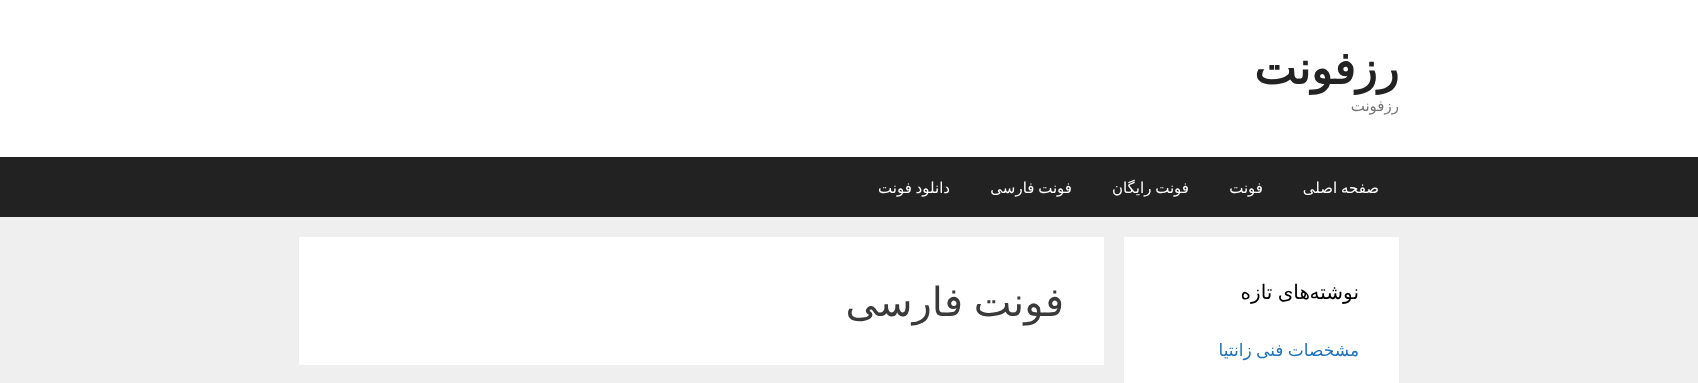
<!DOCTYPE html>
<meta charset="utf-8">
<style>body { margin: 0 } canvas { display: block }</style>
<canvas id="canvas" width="1698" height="383"></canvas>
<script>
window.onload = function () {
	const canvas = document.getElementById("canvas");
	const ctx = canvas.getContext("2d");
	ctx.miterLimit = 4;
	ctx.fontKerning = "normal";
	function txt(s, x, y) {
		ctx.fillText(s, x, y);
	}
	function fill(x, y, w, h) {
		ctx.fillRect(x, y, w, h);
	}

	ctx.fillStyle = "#EFEFEF";
	fill(0, 0, 1698, 383);
	ctx.fillStyle = "#FFFFFF";
	fill(0, 0, 1698, 157);
	ctx.fillStyle = "#222222";
	fill(0, 157, 1698, 60);
	ctx.fillStyle = "#FFFFFF";
	fill(1124, 237, 275, 146);
	fill(299, 237, 805, 128);
	ctx.direction = "rtl";
	ctx.font = "bold 45px DejaVu Sans";
	ctx.fillStyle = "#222222";
	txt("رزفونت", 1399, 84);
	ctx.font = "15px DejaVu Sans";
	ctx.fillStyle = "#757575";
	txt("رزفونت", 1399, 111);
	ctx.wordSpacing = "-1px";
	ctx.fillStyle = "#FFFFFF";
	txt("صفحه اصلی", 1379, 193);
	ctx.wordSpacing = "0px";
	txt("فونت", 1263, 193);
	ctx.wordSpacing = "-1px";
	txt("فونت رایگان", 1189, 193);
	txt("فونت فارسی", 1072, 193);
	txt("دانلود فونت", 950, 193);
	ctx.wordSpacing = "0px";
	ctx.font = "20px DejaVu Sans";
	ctx.fillStyle = "#000000";
	txt("نوشته", 1359, 299);
	ctx.wordSpacing = "-1px";
	txt("های تازه", 1310, 299);
	ctx.font = "17px DejaVu Sans";
	ctx.fillStyle = "#1E73BE";
	txt("مشخصات فنی زانتیا", 1359, 356);
	ctx.wordSpacing = "-2px";
	ctx.font = "40px DejaVu Sans";
	ctx.fillStyle = "#3A3A3A";
	txt("فونت فارسی", 1064, 316);
};
</script>
